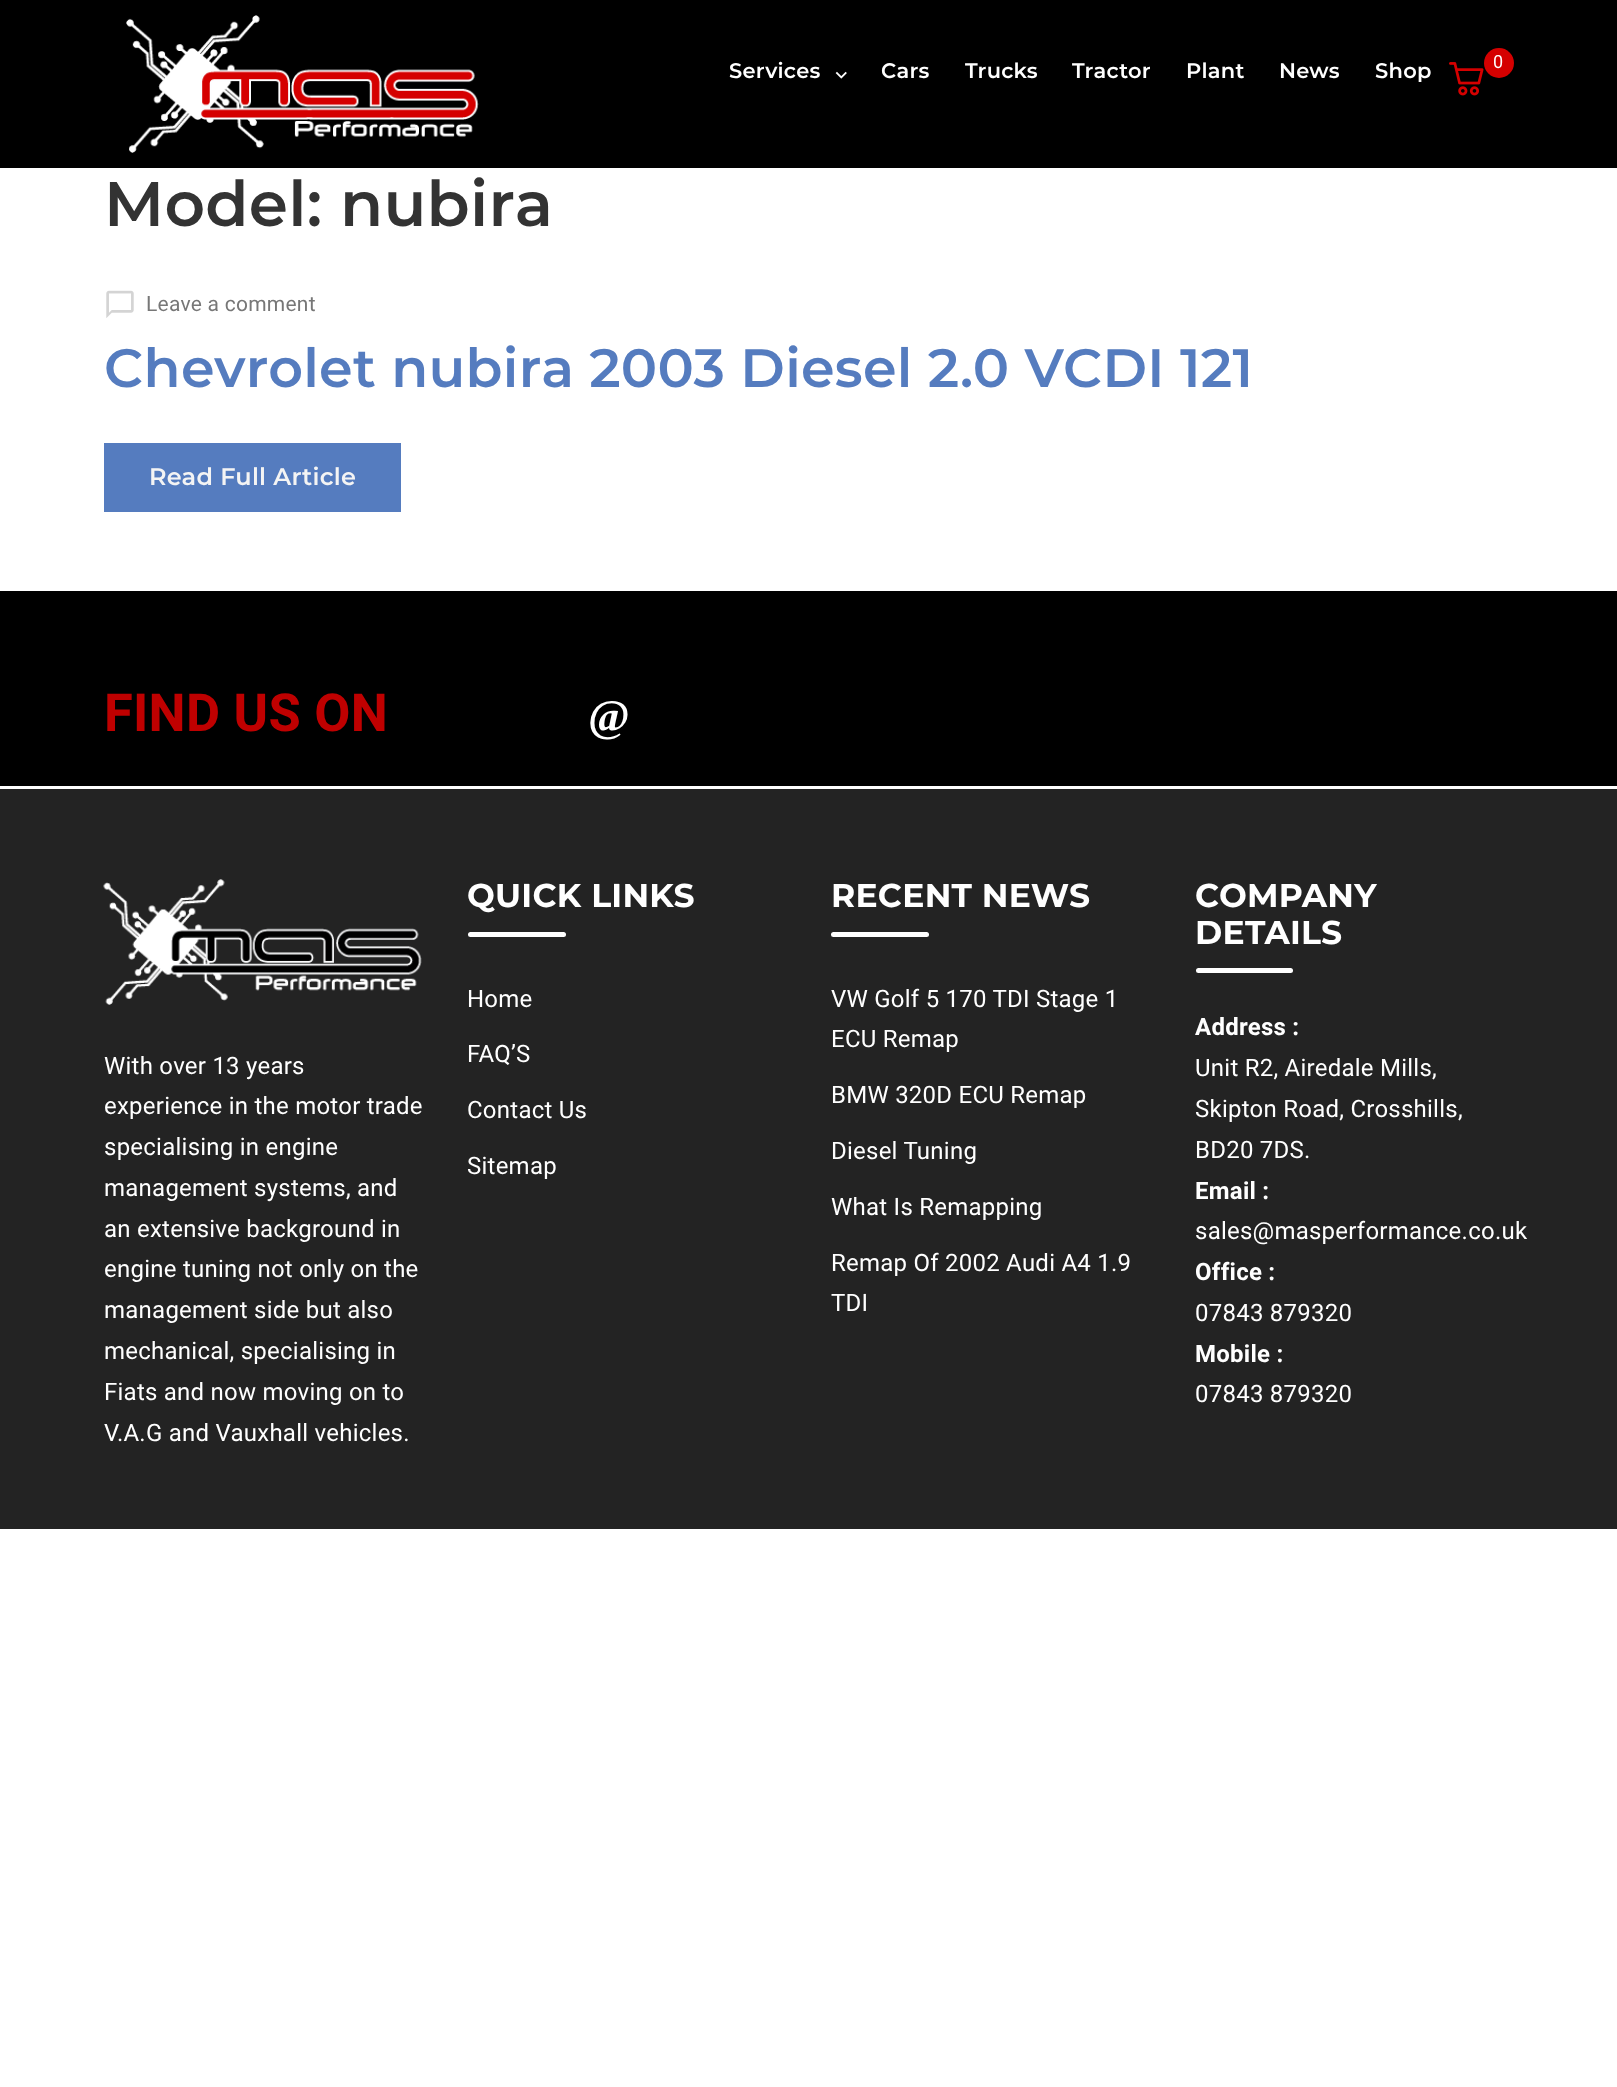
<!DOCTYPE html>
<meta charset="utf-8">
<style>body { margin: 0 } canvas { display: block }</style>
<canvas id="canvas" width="1617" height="2087"></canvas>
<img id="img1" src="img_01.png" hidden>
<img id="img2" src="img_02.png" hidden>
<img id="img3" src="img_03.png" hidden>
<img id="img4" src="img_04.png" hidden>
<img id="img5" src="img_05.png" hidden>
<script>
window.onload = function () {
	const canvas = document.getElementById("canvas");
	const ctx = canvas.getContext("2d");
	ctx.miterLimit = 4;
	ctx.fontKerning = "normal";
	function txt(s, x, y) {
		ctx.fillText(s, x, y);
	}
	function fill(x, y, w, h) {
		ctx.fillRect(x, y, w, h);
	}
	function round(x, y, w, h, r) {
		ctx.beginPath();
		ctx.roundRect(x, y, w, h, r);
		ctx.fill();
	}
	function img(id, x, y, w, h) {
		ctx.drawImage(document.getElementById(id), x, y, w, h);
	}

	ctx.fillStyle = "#FFFFFF";
	fill(0, 0, 1617, 2087);
	ctx.fillStyle = "#000000";
	fill(0, 0, 1617, 168);
	img("img1", 126, 15, 353, 138);
	img("img2", 835, 71, 12, 8);
	img("img3", 1449, 62, 35, 34);
	ctx.fillStyle = "#D50000";
	ctx.beginPath();
	ctx.arc(1499, 63, 15, 0, Math.PI * 2);
	ctx.fill();
	img("img4", 106, 290, 28, 28);
	ctx.fillStyle = "#557CBF";
	fill(104, 443, 297, 69);
	ctx.fillStyle = "#000000";
	fill(0, 591, 1617, 195);
	ctx.fillStyle = "#232323";
	fill(0, 789, 1617, 740);
	img("img5", 103, 879, 319, 126);
	ctx.fillStyle = "#FFFFFF";
	round(468, 932, 98, 5, 2.5);
	round(831, 932, 98, 5, 2.5);
	round(1196, 968, 97, 5, 2.5);
	ctx.letterSpacing = "0.25px";
	ctx.font = "600 21px Montserrat";
	txt("Services", 729, 78);
	txt("Cars", 881, 78);
	txt("Trucks", 965, 78);
	txt("Tractor", 1072, 78);
	txt("Plant", 1186, 78);
	txt("News", 1279, 78);
	txt("Shop", 1375, 78);
	ctx.font = "18px Roboto";
	txt("0", 1493, 68);
	ctx.font = "600 63px Montserrat";
	ctx.fillStyle = "#333333";
	txt("Model: nubira", 104, 226);
	ctx.font = "21px Roboto";
	ctx.fillStyle = "#777777";
	txt("Leave a comment", 146, 311);
	ctx.font = "600 54px Montserrat";
	ctx.fillStyle = "#557CBF";
	txt("Chevrolet nubira 2003 Diesel 2.0 VCDI 121", 104, 387);
	ctx.font = "600 24px Montserrat";
	ctx.fillStyle = "#F4F4F4";
	txt("Read Full Article", 149, 485);
	ctx.font = "bold 52.5px Roboto";
	ctx.fillStyle = "#BF0000";
	txt("FIND US ON", 104, 731);
	ctx.font = "bold 45px Liberation Serif";
	ctx.fillStyle = "#FFFFFF";
	txt("@", 588, 731);
	ctx.font = "24px Roboto";
	txt("With over 13 years", 104, 1074);
	txt("experience in the motor trade", 104, 1114);
	txt("specialising in engine", 104, 1155);
	txt("management systems, and", 104, 1196);
	txt("an extensive background in", 104, 1237);
	txt("engine tuning not only on the", 104, 1277);
	txt("management side but also", 104, 1318);
	txt("mechanical, specialising in", 104, 1359);
	txt("Fiats and now moving on to", 104, 1400);
	txt("V.A.G and Vauxhall vehicles.", 104, 1441);
	ctx.font = "bold 33px Montserrat";
	txt("QUICK LINKS", 467, 907);
	ctx.font = "24px Roboto";
	txt("Home", 467, 1007);
	txt("FAQ’S", 467, 1062);
	txt("Contact Us", 467, 1118);
	txt("Sitemap", 467, 1174);
	ctx.font = "bold 33px Montserrat";
	txt("RECENT NEWS", 831, 907);
	ctx.font = "24px Roboto";
	txt("VW Golf 5 170 TDI Stage 1", 831, 1007);
	txt("ECU Remap", 831, 1047);
	txt("BMW 320D ECU Remap", 831, 1103);
	txt("Diesel Tuning", 831, 1159);
	txt("What Is Remapping", 831, 1215);
	txt("Remap Of 2002 Audi A4 1.9", 831, 1271);
	txt("TDI", 831, 1311);
	ctx.font = "bold 33px Montserrat";
	txt("COMPANY", 1195, 907);
	txt("DETAILS", 1195, 944);
	ctx.font = "bold 24px Roboto";
	txt("Address :", 1195, 1035);
	ctx.font = "24px Roboto";
	txt("Unit R2, Airedale Mills,", 1195, 1076);
	txt("Skipton Road, Crosshills,", 1195, 1117);
	txt("BD20 7DS.", 1195, 1158);
	ctx.font = "bold 24px Roboto";
	txt("Email :", 1195, 1199);
	ctx.font = "24px Roboto";
	txt("sales@masperformance.co.uk", 1195, 1239);
	ctx.font = "bold 24px Roboto";
	txt("Office :", 1195, 1280);
	ctx.font = "24px Roboto";
	txt("07843 879320", 1195, 1321);
	ctx.font = "bold 24px Roboto";
	txt("Mobile :", 1195, 1362);
	ctx.font = "24px Roboto";
	txt("07843 879320", 1195, 1402);
};
</script>
